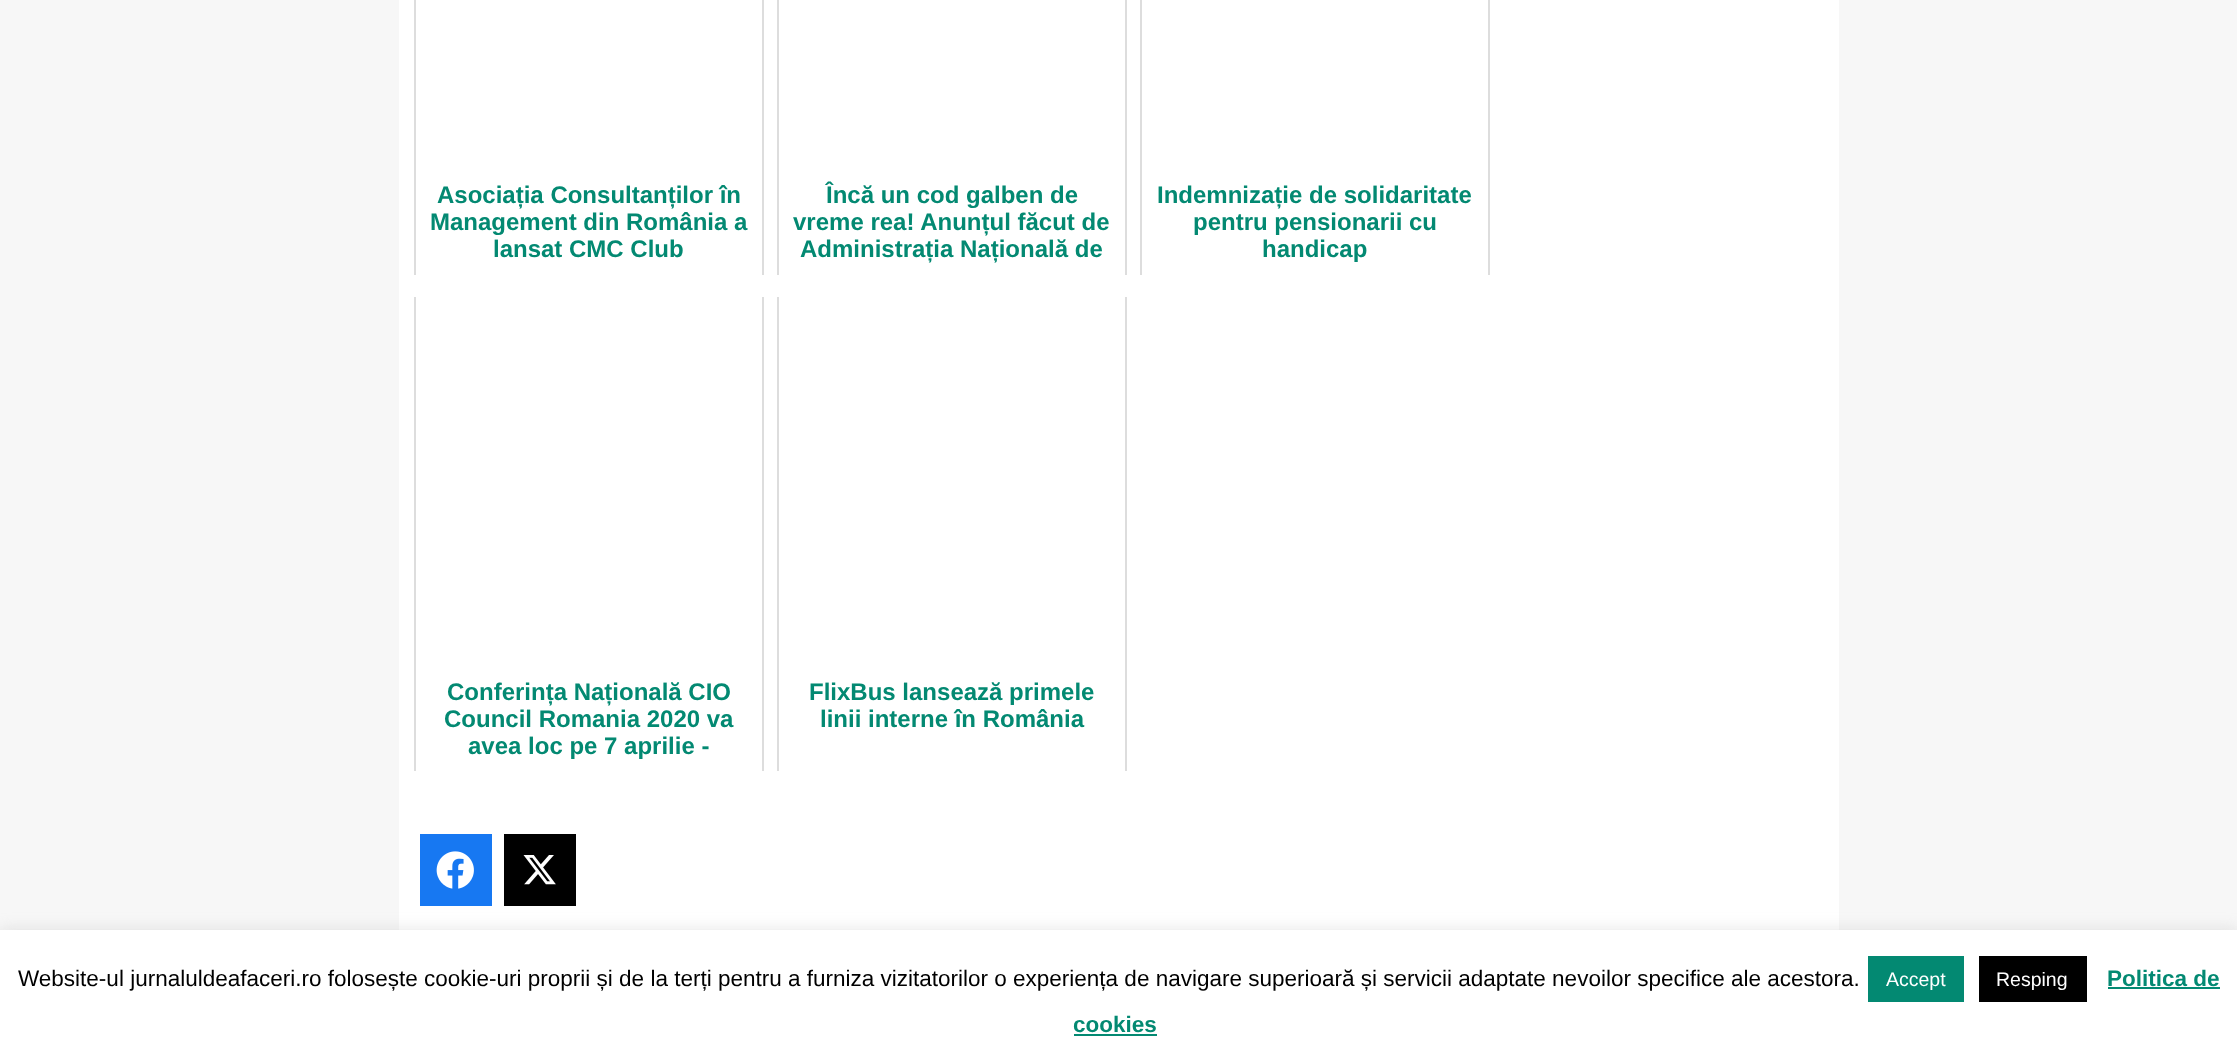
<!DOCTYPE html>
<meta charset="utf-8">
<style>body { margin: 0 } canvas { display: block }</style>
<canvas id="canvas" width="2237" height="1053"></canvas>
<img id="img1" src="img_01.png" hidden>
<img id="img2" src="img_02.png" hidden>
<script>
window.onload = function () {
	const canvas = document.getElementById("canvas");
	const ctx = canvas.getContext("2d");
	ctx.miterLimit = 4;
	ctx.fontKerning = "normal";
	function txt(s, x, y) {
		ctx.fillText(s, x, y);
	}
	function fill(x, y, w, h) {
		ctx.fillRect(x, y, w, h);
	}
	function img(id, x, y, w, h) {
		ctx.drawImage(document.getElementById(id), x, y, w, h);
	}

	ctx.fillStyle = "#F7F7F7";
	fill(0, 0, 2237, 1053);
	ctx.fillStyle = "#FFFFFF";
	fill(399, 0, 1440, 930);
	ctx.fillStyle = "#DDDDDD";
	fill(762, 0, 2, 275);
	fill(414, 0, 2, 275);
	fill(1125, 0, 2, 275);
	fill(777, 0, 2, 275);
	fill(1488, 0, 2, 275);
	fill(1140, 0, 2, 275);
	fill(762, 297, 2, 474);
	fill(414, 297, 2, 474);
	fill(1125, 297, 2, 474);
	fill(777, 297, 2, 474);
	ctx.fillStyle = "#1778F2";
	fill(420, 834, 72, 72);
	img("img1", 436, 851, 38, 38);
	ctx.fillStyle = "#000000";
	fill(504, 834, 72, 72);
	img("img2", 523, 855, 33, 30);
	ctx.fillStyle = "rgba(172, 171, 171, 0.3)";
	ctx.filter = "blur(7.5px)";
	ctx.beginPath();
	ctx.rect(0, 929, 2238, 123);
	ctx.fill();
	ctx.filter = "none";
	ctx.fillStyle = "#FFFFFF";
	fill(0, 930, 2237, 123);
	ctx.fillStyle = "#038972";
	fill(1868, 956, 96, 46);
	ctx.fillStyle = "#000000";
	fill(1979, 956, 108, 46);
	ctx.fillStyle = "#038972";
	fill(2108, 987, 112, 2);
	fill(1074, 1034, 83, 2);
	ctx.font = "bold 24px Liberation Sans";
	txt("Asociația Consultanților în", 437, 203);
	txt("Management din România a", 430, 230);
	txt("lansat CMC Club", 493, 257);
	txt("Încă un cod galben de", 826, 203);
	txt("vreme rea! Anunțul făcut de", 793, 230);
	txt("Administrația Națională de", 800, 257);
	txt("Indemnizație de solidaritate", 1157, 203);
	txt("pentru pensionarii cu", 1193, 230);
	txt("handicap", 1262, 257);
	txt("Conferința Națională CIO", 447, 700);
	txt("Council Romania 2020 va", 444, 727);
	txt("avea loc pe 7 aprilie -", 468, 754);
	txt("FlixBus lansează primele", 809, 700);
	txt("linii interne în România", 820, 727);
	ctx.font = "22.5px Liberation Sans";
	ctx.fillStyle = "#000000";
	txt("Website-ul jurnaluldeafaceri.ro folosește cookie-uri proprii și de la terți pentru a furniza vizitatorilor o experiența de navigare superioară și servicii adaptate nevoilor specifice ale acestora.", 18, 986);
	ctx.font = "19.5px Liberation Sans";
	ctx.fillStyle = "#FFFFFF";
	txt("Accept", 1886, 986);
	txt("Resping", 1996, 986);
	ctx.font = "bold 22.5px Liberation Sans";
	ctx.fillStyle = "#038972";
	txt("Politica de", 2107, 986);
	txt("cookies", 1073, 1032);
};
</script>
